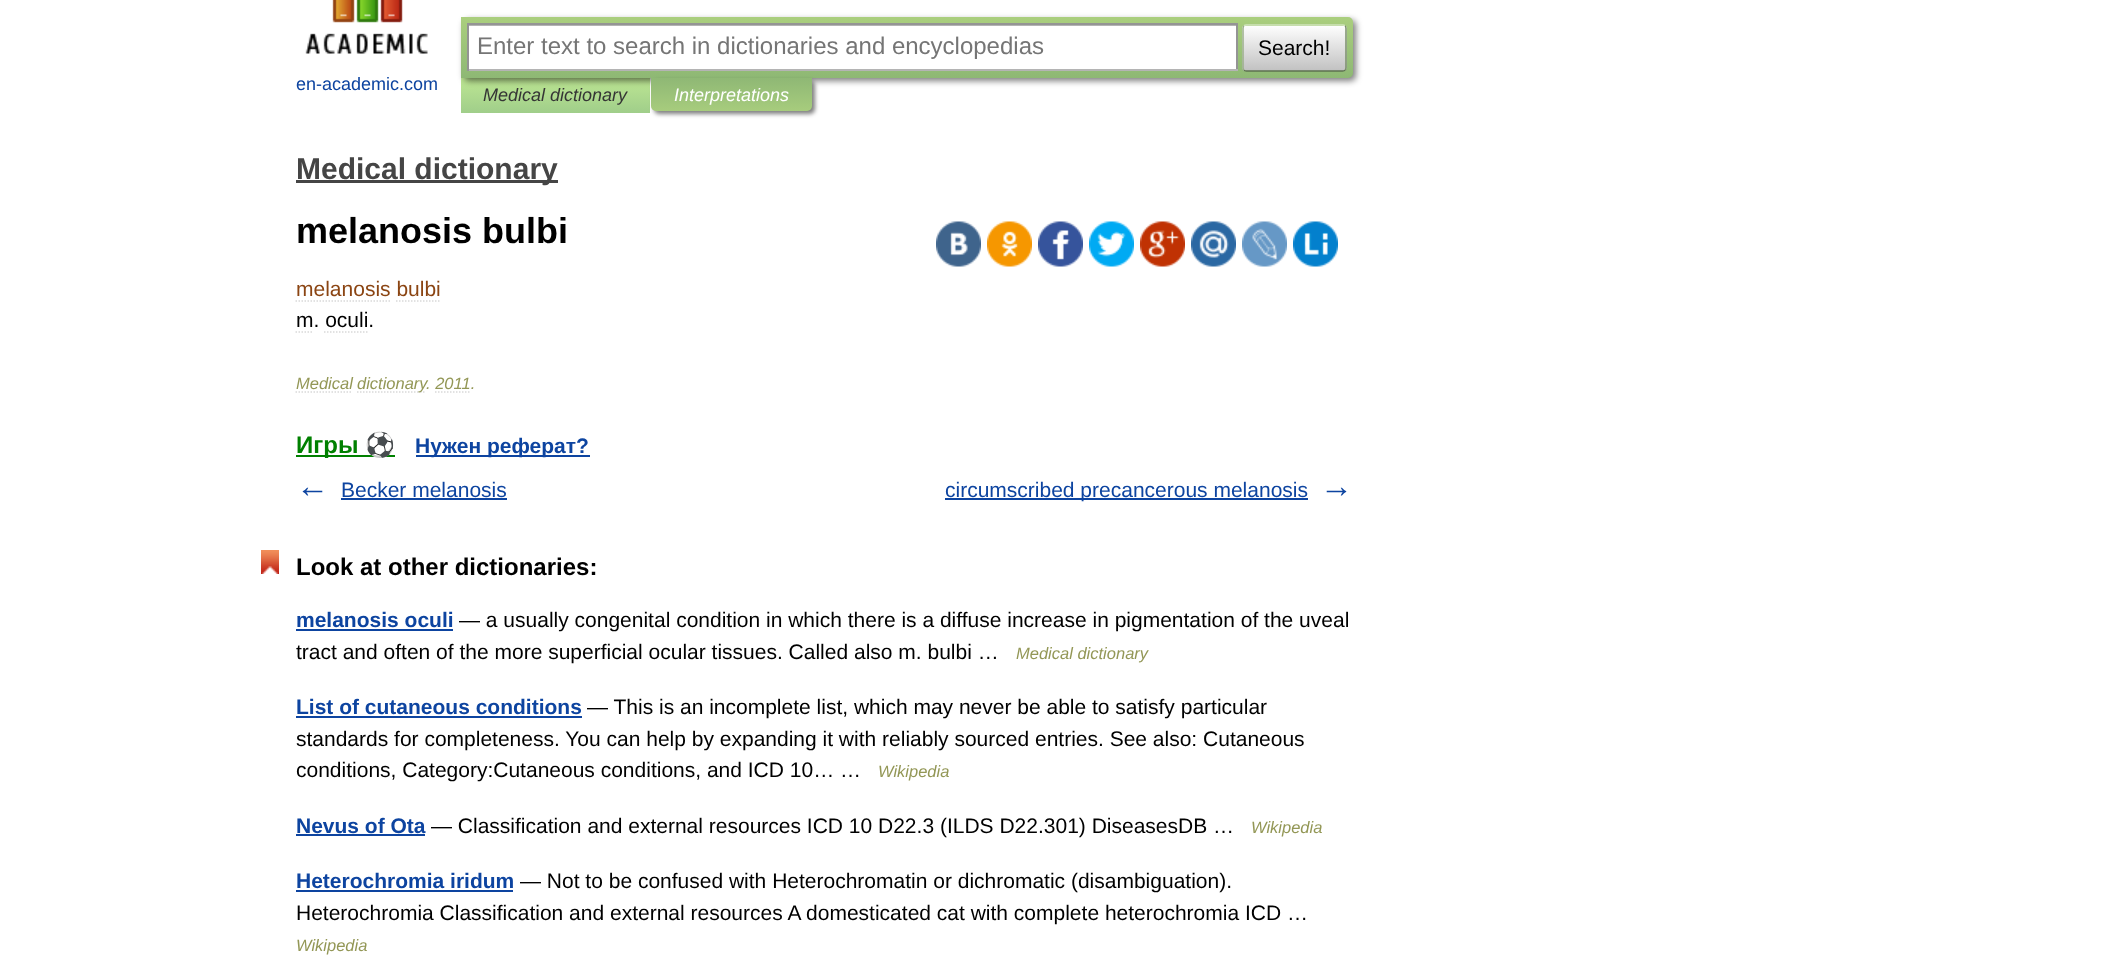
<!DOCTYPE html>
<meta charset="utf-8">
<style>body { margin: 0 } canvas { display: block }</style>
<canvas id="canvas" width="2120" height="960"></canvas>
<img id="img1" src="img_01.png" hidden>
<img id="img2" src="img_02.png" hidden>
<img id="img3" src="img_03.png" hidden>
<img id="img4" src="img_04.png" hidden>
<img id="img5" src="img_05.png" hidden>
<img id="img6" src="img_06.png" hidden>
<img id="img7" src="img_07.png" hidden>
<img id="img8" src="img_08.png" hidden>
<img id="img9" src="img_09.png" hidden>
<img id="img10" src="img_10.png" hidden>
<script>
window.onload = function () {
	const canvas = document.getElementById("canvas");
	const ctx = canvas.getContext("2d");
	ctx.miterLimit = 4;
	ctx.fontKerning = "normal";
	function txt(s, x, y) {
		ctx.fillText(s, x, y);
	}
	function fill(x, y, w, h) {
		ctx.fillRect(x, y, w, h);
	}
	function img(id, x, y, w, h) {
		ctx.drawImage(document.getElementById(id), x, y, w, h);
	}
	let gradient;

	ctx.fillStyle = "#FFFFFF";
	fill(0, 0, 2120, 960);
	gradient = ctx.createLinearGradient(555, 78, 555, 113);
	gradient.addColorStop(0, "#BDE693");
	gradient.addColorStop(1, "#A0CE8A");
	ctx.fillStyle = gradient;
	fill(461, 78, 189, 35);
	ctx.fillStyle = "rgba(0, 0, 0, 0.5)";
	ctx.filter = "blur(3px)";
	ctx.beginPath();
	ctx.roundRect(464, 20, 892, 61, 5);
	ctx.fill();
	ctx.filter = "none";
	gradient = ctx.createLinearGradient(907, 16, 907, 78);
	gradient.addColorStop(0, "#ABCF7E");
	gradient.addColorStop(1, "#8EB874");
	ctx.fillStyle = gradient;
	ctx.beginPath();
	ctx.roundRect(461, 17, 892, 61, [0, 5, 5, 0]);
	ctx.fill();
	ctx.fillStyle = "#FFFFFF";
	fill(469, 26, 767, 43);
	ctx.fillStyle = "#B3B3B3";
	fill(468, 25, 768, 1);
	ctx.fillStyle = "#949494";
	fill(467, 23, 771, 2);
	fill(1236, 23, 2, 48);
	ctx.fillStyle = "#B4B4B4";
	fill(467, 69, 771, 2);
	ctx.fillStyle = "#949494";
	fill(467, 23, 2, 48);
	ctx.save();
	ctx.beginPath();
	ctx.roundRect(1242, 24, 105, 48, 5);
	ctx.clip();
	gradient = ctx.createLinearGradient(1295, 25, 1295, 71);
	gradient.addColorStop(0, "#FFFFFF");
	gradient.addColorStop(1, "#C1C1C1");
	ctx.fillStyle = gradient;
	fill(1242, 26, 105, 45);
	ctx.restore();
	ctx.beginPath();
	ctx.moveTo(1244, 26);
	ctx.bezierCurveTo(1244.5, 25, 1245.5, 25, 1246.5, 25);
	ctx.lineTo(1342.5, 25);
	ctx.bezierCurveTo(1343.5, 25, 1344.5, 25, 1345, 26);
	ctx.strokeStyle = "#D1E4BC";
	ctx.lineWidth = 1.5;
	ctx.stroke();
	ctx.beginPath();
	ctx.moveTo(1345, 26);
	ctx.bezierCurveTo(1346, 26.5, 1346, 27.5, 1346, 28.5);
	ctx.lineTo(1346, 67.5);
	ctx.bezierCurveTo(1346, 68.5, 1346, 69.5, 1345, 70);
	ctx.strokeStyle = "#7A8E69";
	ctx.stroke();
	ctx.beginPath();
	ctx.moveTo(1345, 70);
	ctx.bezierCurveTo(1344.5, 71, 1343.5, 71, 1342.5, 71);
	ctx.lineTo(1246.5, 71);
	ctx.bezierCurveTo(1245.5, 71, 1244.5, 71, 1244, 70);
	ctx.strokeStyle = "#5D7250";
	ctx.stroke();
	ctx.beginPath();
	ctx.moveTo(1244, 70);
	ctx.bezierCurveTo(1243, 69.5, 1243, 68.5, 1243, 67.5);
	ctx.lineTo(1243, 28.5);
	ctx.bezierCurveTo(1243, 27.5, 1243, 26.5, 1244, 26);
	ctx.strokeStyle = "#9AAE89";
	ctx.stroke();
	img("img1", 305, 0, 123, 54);
	ctx.fillStyle = "rgba(0, 0, 0, 0.5)";
	ctx.filter = "blur(2px)";
	ctx.beginPath();
	ctx.roundRect(654, 81, 161, 33, 5);
	ctx.fill();
	ctx.filter = "none";
	gradient = ctx.createLinearGradient(731, 78, 731, 111);
	gradient.addColorStop(0, "#8FB875");
	gradient.addColorStop(1, "#A7CC7D");
	ctx.fillStyle = gradient;
	ctx.beginPath();
	ctx.roundRect(651, 78, 161, 33, [0, 0, 5, 5]);
	ctx.fill();
	ctx.fillStyle = "#454545";
	fill(296, 180, 262, 3);
	img("img2", 936, 221, 45, 46);
	img("img3", 987, 221, 45, 46);
	img("img4", 1038, 221, 45, 46);
	img("img5", 1089, 221, 45, 46);
	img("img6", 1140, 221, 45, 46);
	img("img7", 1191, 221, 45, 46);
	img("img8", 1242, 221, 45, 46);
	img("img9", 1293, 221, 45, 46);
	ctx.beginPath();
	ctx.moveTo(295.5, 301);
	ctx.lineTo(390, 301);
	ctx.strokeStyle = "#D9D9D9";
	ctx.setLineDash([1.5, 1.5]);
	ctx.stroke();
	ctx.beginPath();
	ctx.moveTo(396, 301);
	ctx.lineTo(441, 301);
	ctx.stroke();
	ctx.beginPath();
	ctx.moveTo(295.5, 332);
	ctx.lineTo(313.5, 332);
	ctx.stroke();
	ctx.beginPath();
	ctx.moveTo(324, 332);
	ctx.lineTo(367.5, 332);
	ctx.stroke();
	ctx.beginPath();
	ctx.moveTo(295.5, 392);
	ctx.lineTo(352.5, 392);
	ctx.stroke();
	ctx.beginPath();
	ctx.moveTo(357, 392);
	ctx.lineTo(426, 392);
	ctx.stroke();
	ctx.beginPath();
	ctx.moveTo(435, 392);
	ctx.lineTo(471, 392);
	ctx.stroke();
	ctx.fillStyle = "#008000";
	fill(296, 455, 99, 2);
	ctx.fillStyle = "#0D44A0";
	fill(416, 455, 174, 2);
	fill(341, 498, 166, 2);
	fill(945, 498, 363, 2);
	img("img10", 261, 550, 18, 24);
	fill(296, 629, 157, 2);
	fill(296, 716, 286, 2);
	fill(296, 834, 129, 2);
	fill(296, 890, 217, 2);
	ctx.font = "24px Liberation Sans";
	ctx.fillStyle = "#757575";
	txt("Enter text to search in dictionaries and encyclopedias", 477, 54);
	ctx.font = "21px Liberation Sans";
	ctx.fillStyle = "#000000";
	txt("Search!", 1258, 55);
	ctx.font = "18px Liberation Sans";
	ctx.fillStyle = "#0D44A0";
	txt("en-academic.com", 296, 90);
	ctx.font = "italic 18px Liberation Sans";
	ctx.fillStyle = "#353535";
	txt("Medical dictionary", 483, 101);
	ctx.fillStyle = "#FFFFFF";
	txt("Interpretations", 674, 101);
	ctx.font = "bold 30px Liberation Sans";
	ctx.fillStyle = "#454545";
	txt("Medical dictionary", 296, 179);
	ctx.font = "bold 36px Liberation Sans";
	ctx.fillStyle = "#000000";
	txt("melanosis bulbi", 296, 243);
	ctx.font = "21px Liberation Sans";
	ctx.fillStyle = "#8B4513";
	txt("melanosis bulbi", 296, 296);
	ctx.fillStyle = "#000000";
	txt("m. oculi.", 296, 327);
	ctx.font = "italic 16.5px Liberation Sans";
	ctx.fillStyle = "#939756";
	txt("Medical", 296, 389);
	txt("dictionary", 357, 389);
	txt(". 2011.", 426, 389);
	ctx.font = "bold 24px Liberation Sans";
	ctx.fillStyle = "#008000";
	txt("Игры", 296, 453);
	ctx.font = "bold 24px Noto Color Emoji";
	txt("⚽", 365, 453);
	ctx.font = "bold 21px Liberation Sans";
	ctx.fillStyle = "#0D44A0";
	txt("Нужен реферат?", 415, 453);
	ctx.font = "bold 33px Liberation Sans";
	txt("←", 296, 497);
	ctx.font = "21px Liberation Sans";
	txt("Becker melanosis", 341, 497);
	txt("circumscribed precancerous melanosis", 945, 497);
	ctx.font = "bold 33px Liberation Sans";
	txt("→", 1320, 497);
	ctx.font = "bold 24px Liberation Sans";
	ctx.fillStyle = "#000000";
	txt("Look at other dictionaries:", 296, 575);
	ctx.font = "bold 21px Liberation Sans";
	ctx.fillStyle = "#0D44A0";
	txt("melanosis oculi", 296, 627);
	ctx.font = "21px Liberation Sans";
	ctx.fillStyle = "#000000";
	txt("— a usually congenital condition in which there is a diffuse increase in pigmentation of the uveal", 459, 627);
	txt("tract and often of the more superficial ocular tissues. Called also m. bulbi …", 296, 659);
	ctx.font = "italic 16.5px Liberation Sans";
	ctx.fillStyle = "#939756";
	txt("Medical dictionary", 1016, 659);
	ctx.font = "bold 21px Liberation Sans";
	ctx.fillStyle = "#0D44A0";
	txt("List of cutaneous conditions", 296, 714);
	ctx.font = "21px Liberation Sans";
	ctx.fillStyle = "#000000";
	txt("— This is an incomplete list, which may never be able to satisfy particular", 587, 714);
	txt("standards for completeness. You can help by expanding it with reliably sourced entries. See also: Cutaneous", 296, 746);
	txt("conditions, Category:Cutaneous conditions, and ICD 10… …", 296, 777);
	ctx.font = "italic 16.5px Liberation Sans";
	ctx.fillStyle = "#939756";
	txt("Wikipedia", 878, 777);
	ctx.font = "bold 21px Liberation Sans";
	ctx.fillStyle = "#0D44A0";
	txt("Nevus of Ota", 296, 833);
	ctx.font = "21px Liberation Sans";
	ctx.fillStyle = "#000000";
	txt("— Classification and external resources ICD 10 D22.3 (ILDS D22.301) DiseasesDB …", 431, 833);
	ctx.font = "italic 16.5px Liberation Sans";
	ctx.fillStyle = "#939756";
	txt("Wikipedia", 1251, 833);
	ctx.font = "bold 21px Liberation Sans";
	ctx.fillStyle = "#0D44A0";
	txt("Heterochromia iridum", 296, 888);
	ctx.font = "21px Liberation Sans";
	ctx.fillStyle = "#000000";
	txt("— Not to be confused with Heterochromatin or dichromatic (disambiguation).", 520, 888);
	txt("Heterochromia Classification and external resources A domesticated cat with complete heterochromia ICD …", 296, 920);
	ctx.font = "italic 16.5px Liberation Sans";
	ctx.fillStyle = "#939756";
	txt("Wikipedia", 296, 951);
};
</script>
